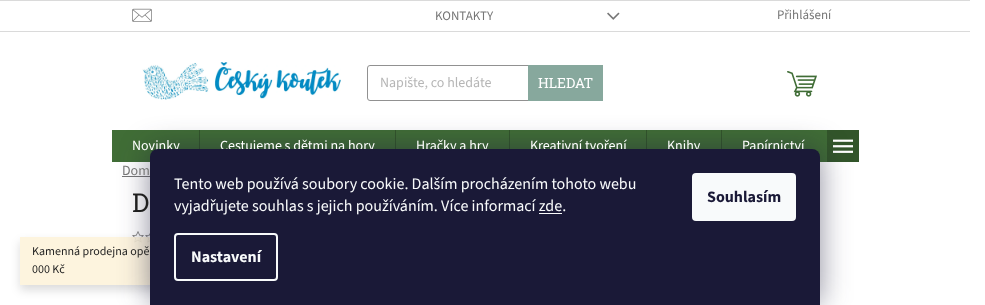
<!DOCTYPE html>
<meta charset="utf-8">
<style>body { margin: 0 } canvas { display: block }</style>
<canvas id="canvas" width="985" height="305"></canvas>
<img id="img1" src="img_01.png" hidden>
<img id="img2" src="img_02.png" hidden>
<img id="img3" src="img_03.png" hidden>
<img id="img4" src="img_04.png" hidden>
<img id="img5" src="img_05.png" hidden>
<img id="img6" src="img_06.png" hidden>
<img id="img7" src="img_07.png" hidden>
<script>
window.onload = function () {
	const canvas = document.getElementById("canvas");
	const ctx = canvas.getContext("2d");
	ctx.miterLimit = 4;
	ctx.fontKerning = "normal";
	function txt(s, x, y) {
		ctx.fillText(s, x, y);
	}
	function fill(x, y, w, h) {
		ctx.fillRect(x, y, w, h);
	}
	function round(x, y, w, h, r) {
		ctx.beginPath();
		ctx.roundRect(x, y, w, h, r);
		ctx.fill();
	}
	function img(id, x, y, w, h) {
		ctx.drawImage(document.getElementById(id), x, y, w, h);
	}

	ctx.fillStyle = "#FFFFFF";
	fill(0, 0, 985, 305);
	ctx.fillStyle = "#DADADA";
	fill(0, 0, 970, 1);
	fill(0, 31, 970, 1);
	img("img1", 132, 8, 20, 14);
	img("img2", 607, 12, 13, 8);
	img("img3", 142, 62, 199, 38);
	ctx.beginPath();
	ctx.roundRect(367.5, 65.5, 235, 35, 2.5);
	ctx.strokeStyle = "#919191";
	ctx.stroke();
	ctx.fillStyle = "#87A89D";
	fill(528, 65, 75, 36);
	img("img4", 787, 71, 30, 26);
	ctx.fillStyle = "#406D36";
	fill(112, 130, 715, 32);
	ctx.fillStyle = "#32552A";
	fill(199, 130, 1, 19);
	fill(395, 130, 1, 19);
	fill(509, 130, 1, 19);
	fill(646, 130, 1, 19);
	fill(721, 130, 1, 19);
	fill(827, 130, 32, 32);
	img("img5", 833, 139, 20, 14);
	ctx.fillStyle = "#767676";
	fill(122, 176, 35, 1);
	img("img6", 132, 231, 12, 12);
	img("img7", 145, 233, 5, 10);
	ctx.save();
	ctx.beginPath();
	ctx.moveTo(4, 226);
	ctx.lineTo(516, 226);
	ctx.lineTo(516, 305);
	ctx.lineTo(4, 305);
	ctx.closePath();
	ctx.moveTo(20, 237);
	ctx.lineTo(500, 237);
	ctx.lineTo(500, 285);
	ctx.lineTo(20, 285);
	ctx.closePath();
	ctx.clip("evenodd");
	ctx.fillStyle = "rgba(0, 0, 0, 0.14)";
	ctx.filter = "blur(5px)";
	ctx.beginPath();
	ctx.rect(20, 242, 480, 48);
	ctx.fill();
	ctx.filter = "none";
	ctx.restore();
	ctx.fillStyle = "rgba(253, 243, 218, 0.9)";
	fill(20, 237, 130, 48);
	ctx.fillStyle = "rgba(27, 25, 57, 0.5)";
	ctx.filter = "blur(15px)";
	ctx.beginPath();
	ctx.roundRect(150, 149, 670, 156, 8);
	ctx.fill();
	ctx.filter = "none";
	ctx.font = "13px 'Source Sans 3'";
	ctx.fillStyle = "#767676";
	txt("KONTAKTY", 435, 20);
	txt("Přihlášení", 777, 19);
	ctx.font = "14px 'Source Sans 3'";
	ctx.fillStyle = "#B6B6B6";
	txt("Napište, co hledáte", 380, 87);
	ctx.font = "14px Roboto Slab";
	ctx.fillStyle = "#FFFFFF";
	txt("HLEDAT", 538, 88);
	ctx.font = "14px 'Source Sans 3'";
	txt("Novinky", 132, 150);
	txt("Cestujeme s dětmi na hory", 220, 150);
	txt("Hračky a hry", 416, 150);
	txt("Kreativní tvoření", 530, 150);
	txt("Knihy", 667, 150);
	txt("Papírnictví", 742, 150);
	ctx.fillStyle = "#767676";
	txt("Dom", 122, 175);
	ctx.font = "26px Roboto Slab";
	ctx.fillStyle = "#1F1F1F";
	txt("D", 132, 212);
	ctx.font = "12px 'Source Sans 3'";
	txt("Kamenná prodejna opě", 32, 255);
	txt("000 Kč", 32, 273);
	ctx.fillStyle = "#1A1937";
	ctx.beginPath();
	ctx.roundRect(150, 149, 670, 156, [8, 8, 0, 0]);
	ctx.fill();
	ctx.font = "16px 'Source Sans 3'";
	ctx.fillStyle = "#F8FAFB";
	txt("Tento web používá soubory cookie. Dalším procházením tohoto webu", 174, 189);
	txt("vyjadřujete souhlas s jejich používáním. Více informací zde.", 174, 211);
	fill(539, 213, 23, 1);
	ctx.beginPath();
	ctx.roundRect(175, 234, 102, 46, 3);
	ctx.strokeStyle = "#F8FAFB";
	ctx.lineWidth = 2;
	ctx.stroke();
	ctx.font = "bold 16px 'Source Sans 3'";
	txt("Nastavení", 191, 262);
	round(692, 173, 104, 48, 4);
	ctx.fillStyle = "#1A1937";
	txt("Souhlasím", 707, 202);
};
</script>
